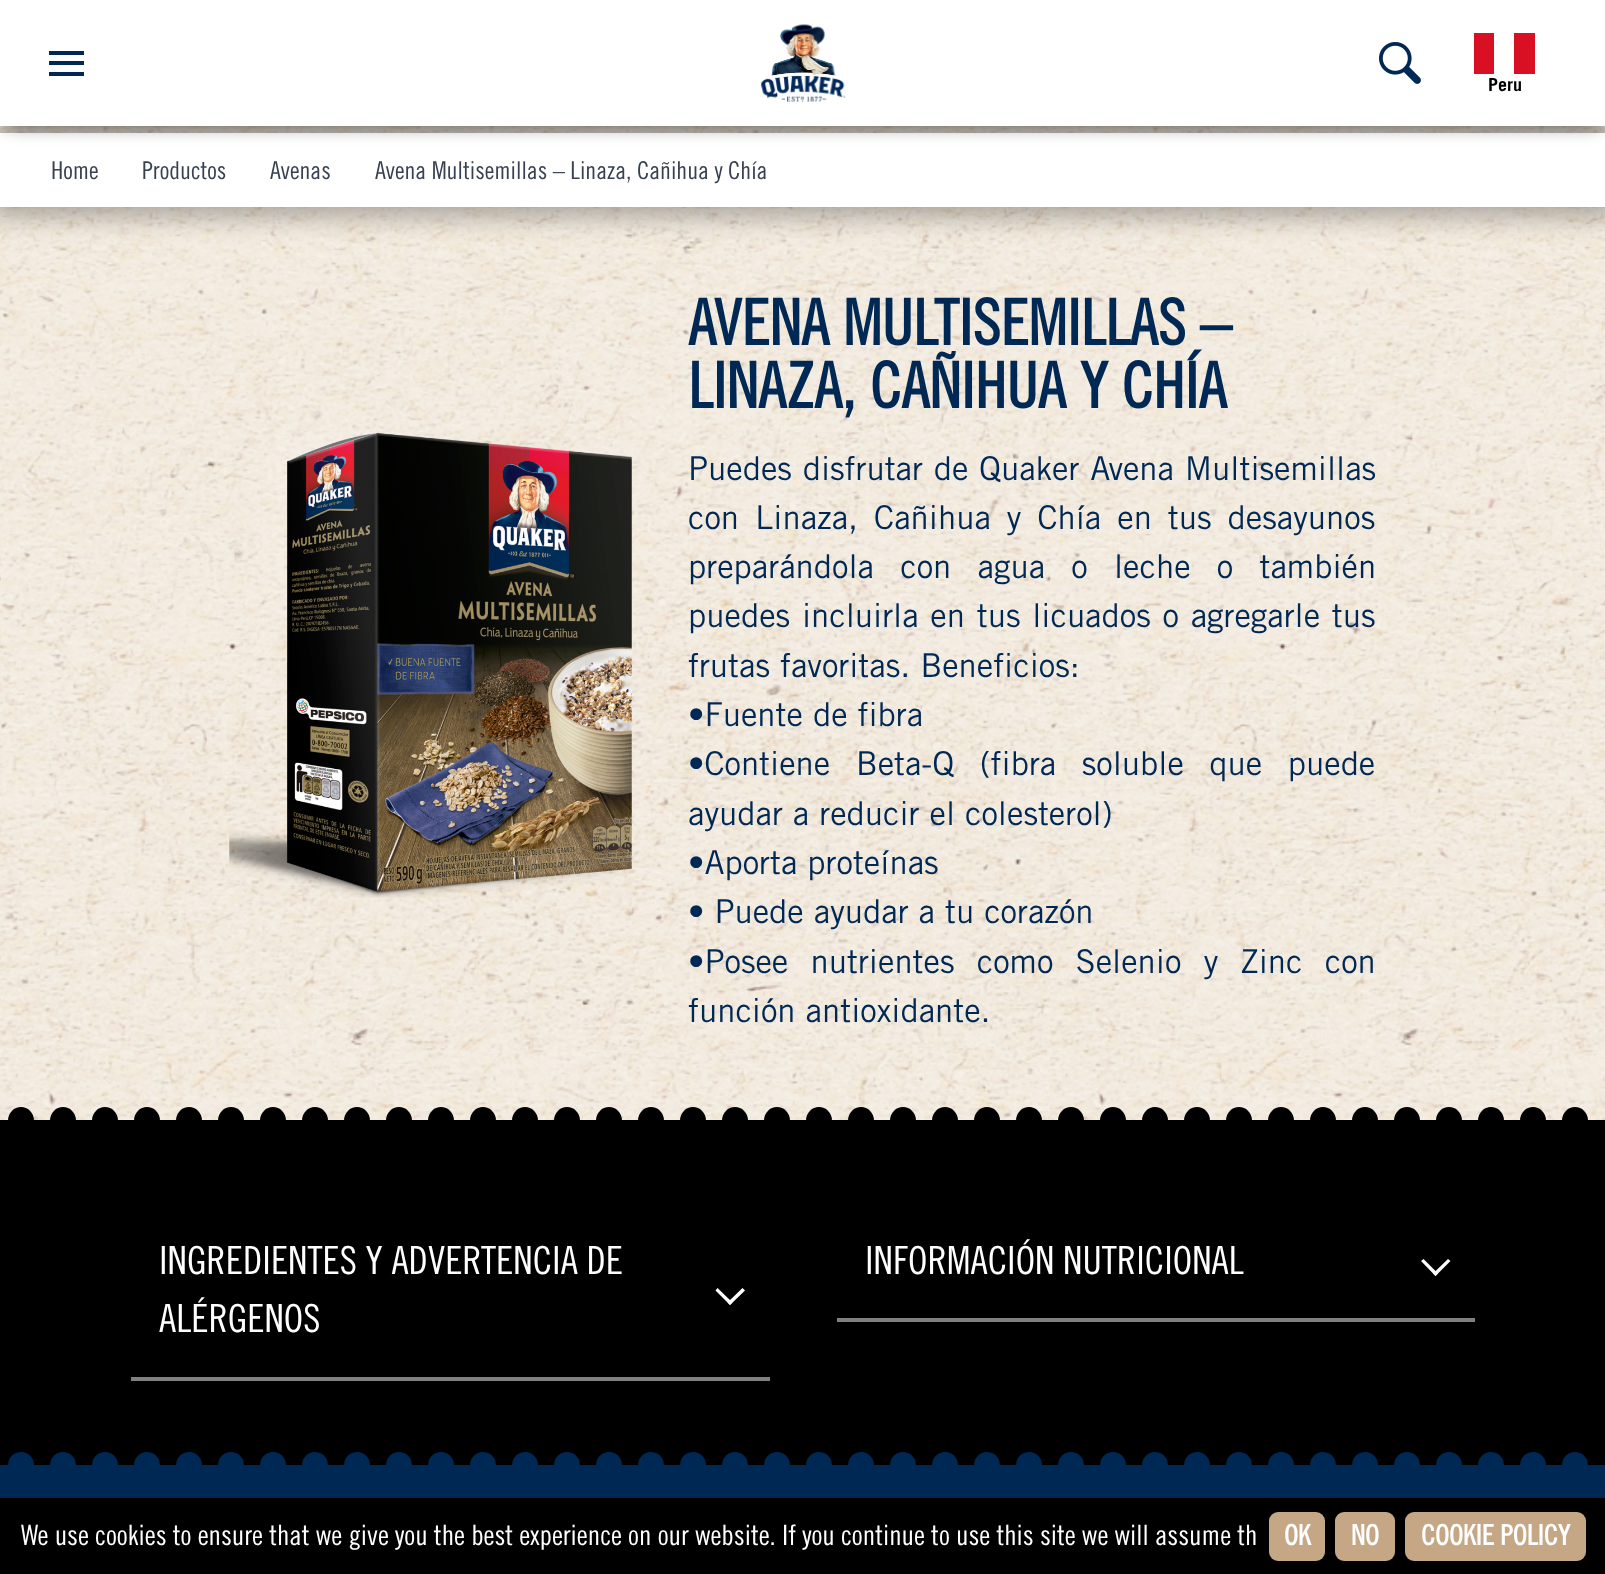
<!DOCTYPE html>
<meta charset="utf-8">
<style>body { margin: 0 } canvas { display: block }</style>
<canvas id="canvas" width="1605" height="1574"></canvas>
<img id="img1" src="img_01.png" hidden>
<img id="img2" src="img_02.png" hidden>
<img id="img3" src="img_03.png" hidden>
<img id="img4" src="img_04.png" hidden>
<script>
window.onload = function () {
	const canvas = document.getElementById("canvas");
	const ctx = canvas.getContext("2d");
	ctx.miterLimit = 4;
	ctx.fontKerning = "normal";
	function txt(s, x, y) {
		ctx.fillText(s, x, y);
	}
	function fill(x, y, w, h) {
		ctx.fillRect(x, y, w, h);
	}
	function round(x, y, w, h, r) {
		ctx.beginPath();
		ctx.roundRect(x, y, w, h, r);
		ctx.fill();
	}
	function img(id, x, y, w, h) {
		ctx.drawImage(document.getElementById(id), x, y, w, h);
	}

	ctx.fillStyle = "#FFFFFF";
	fill(0, 0, 1605, 1574);
	img("img1", 0, 126, 1605, 994);
	ctx.fillStyle = "rgba(0, 0, 0, 0.3)";
	ctx.filter = "blur(13px)";
	ctx.beginPath();
	ctx.rect(-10, 123, 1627, 94);
	ctx.fill();
	ctx.filter = "none";
	ctx.fillStyle = "#FFFFFF";
	fill(0, 133, 1605, 74);
	ctx.fillStyle = "rgba(0, 0, 0, 0.75)";
	ctx.filter = "blur(9.5px)";
	ctx.beginPath();
	ctx.rect(7, 11, 1593, 112);
	ctx.fill();
	ctx.filter = "none";
	ctx.fillStyle = "#FFFFFF";
	fill(0, 0, 1605, 126);
	ctx.fillStyle = "#002854";
	fill(49, 61, 35, 4);
	fill(49, 51, 35, 4);
	fill(49, 72, 35, 4);
	img("img2", 761, 24, 85, 78);
	img("img3", 1379, 42, 42, 42);
	ctx.fillStyle = "#D91023";
	fill(1474, 33, 61, 41);
	ctx.fillStyle = "#FFFFFF";
	fill(1494, 33, 20, 41);
	img("img4", 229, 432, 403, 466);
	ctx.fillStyle = "#000000";
	fill(0, 1120, 1605, 345);
	ctx.beginPath();
	ctx.moveTo(21, 1120);
	ctx.lineTo(1575.4, 1120);
	ctx.strokeStyle = "#000000";
	ctx.lineWidth = 25.8;
	ctx.lineCap = "round";
	ctx.setLineDash([0, 42]);
	ctx.stroke();
	ctx.fillStyle = "#808080";
	fill(131, 1377, 639, 4);
	ctx.fillStyle = "#FFFFFF";
	ctx.beginPath();
	ctx.moveTo(742.5, 1288);
	ctx.lineTo(745, 1290.5);
	ctx.lineTo(730, 1305);
	ctx.lineTo(727.5, 1302.5);
	ctx.closePath();
	ctx.fill();
	ctx.beginPath();
	ctx.moveTo(717.5, 1288);
	ctx.lineTo(732.5, 1302.5);
	ctx.lineTo(730, 1305);
	ctx.lineTo(715.5, 1290.5);
	ctx.closePath();
	ctx.fill();
	ctx.fillStyle = "#808080";
	fill(837, 1318, 638, 4);
	ctx.fillStyle = "#FFFFFF";
	ctx.beginPath();
	ctx.moveTo(1448, 1259);
	ctx.lineTo(1450.5, 1261);
	ctx.lineTo(1435.5, 1276);
	ctx.lineTo(1433, 1273.5);
	ctx.closePath();
	ctx.fill();
	ctx.beginPath();
	ctx.moveTo(1423.5, 1259);
	ctx.lineTo(1438, 1273.5);
	ctx.lineTo(1435.5, 1276);
	ctx.lineTo(1421, 1261);
	ctx.closePath();
	ctx.fill();
	ctx.beginPath();
	ctx.moveTo(21, 1464.8);
	ctx.lineTo(1575.4, 1464.8);
	ctx.stroke();
	ctx.fillStyle = "#002855";
	fill(0, 1465, 1605, 33);
	ctx.beginPath();
	ctx.moveTo(21, 1464.8);
	ctx.lineTo(1575.4, 1464.8);
	ctx.strokeStyle = "#002854";
	ctx.stroke();
	ctx.fillStyle = "#000000";
	fill(0, 1498, 1605, 76);
	ctx.fillStyle = "#C5A785";
	round(1269, 1512, 56, 49, 9);
	round(1335, 1512, 60, 49, 9);
	round(1405, 1512, 181, 49, 9);
	ctx.font = "bold 18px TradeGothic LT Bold";
	ctx.fillStyle = "#000000";
	txt("Peru", 1488, 91);
	ctx.font = "500 24.5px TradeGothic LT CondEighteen";
	ctx.fillStyle = "#374151";
	txt("Home", 51, 179);
	txt("Productos", 142, 179);
	txt("Avenas", 270, 179);
	txt("Avena Multisemillas – Linaza, Cañihua y Chía", 375, 179);
	ctx.font = "bold 63px TradeGothic LT CondEighteen";
	ctx.fillStyle = "#002854";
	txt("AVENA MULTISEMILLAS –", 688, 345);
	txt("LINAZA, CAÑIHUA Y CHÍA", 688, 408);
	ctx.wordSpacing = "0.75px";
	ctx.font = "32.85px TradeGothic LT";
	txt("Puedes disfrutar de Quaker Avena Multisemillas", 688, 480);
	ctx.wordSpacing = "6px";
	txt("con Linaza, Cañihua y Chía en tus desayunos", 688, 529);
	ctx.wordSpacing = "16.25px";
	txt("preparándola con agua o leche o también", 688, 578);
	ctx.wordSpacing = "1.75px";
	txt("puedes incluirla en tus licuados o agregarle tus", 688, 627);
	ctx.wordSpacing = "0px";
	txt("frutas favoritas. Beneficios:", 688, 677);
	txt("•Fuente de fibra", 688, 726);
	ctx.wordSpacing = "15.5px";
	txt("•Contiene Beta-Q (fibra soluble que puede", 688, 775);
	ctx.wordSpacing = "0px";
	txt("ayudar a reducir el colesterol)", 688, 825);
	txt("•Aporta proteínas", 688, 874);
	txt("• Puede ayudar a tu corazón", 688, 923);
	ctx.wordSpacing = "12.25px";
	txt("•Posee nutrientes como Selenio y Zinc con", 688, 973);
	ctx.wordSpacing = "0px";
	txt("función antioxidante.", 688, 1022);
	ctx.font = "500 38.75px 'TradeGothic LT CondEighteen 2'";
	ctx.fillStyle = "#FFFFFF";
	txt("INGREDIENTES Y ADVERTENCIA DE", 159, 1274);
	txt("ALÉRGENOS", 159, 1332);
	txt("INFORMACIÓN NUTRICIONAL", 865, 1274);
	ctx.font = "500 28px TradeGothic LT CondEighteen";
	txt("We use cookies to ensure that we give you the best experience on our website. If you continue to use this site we will assume th", 21, 1545);
	ctx.font = "bold 28px TradeGothic LT CondEighteen";
	txt("OK", 1284, 1545);
	txt("NO", 1351, 1545);
	txt("COOKIE POLICY", 1421, 1545);
};
</script>
